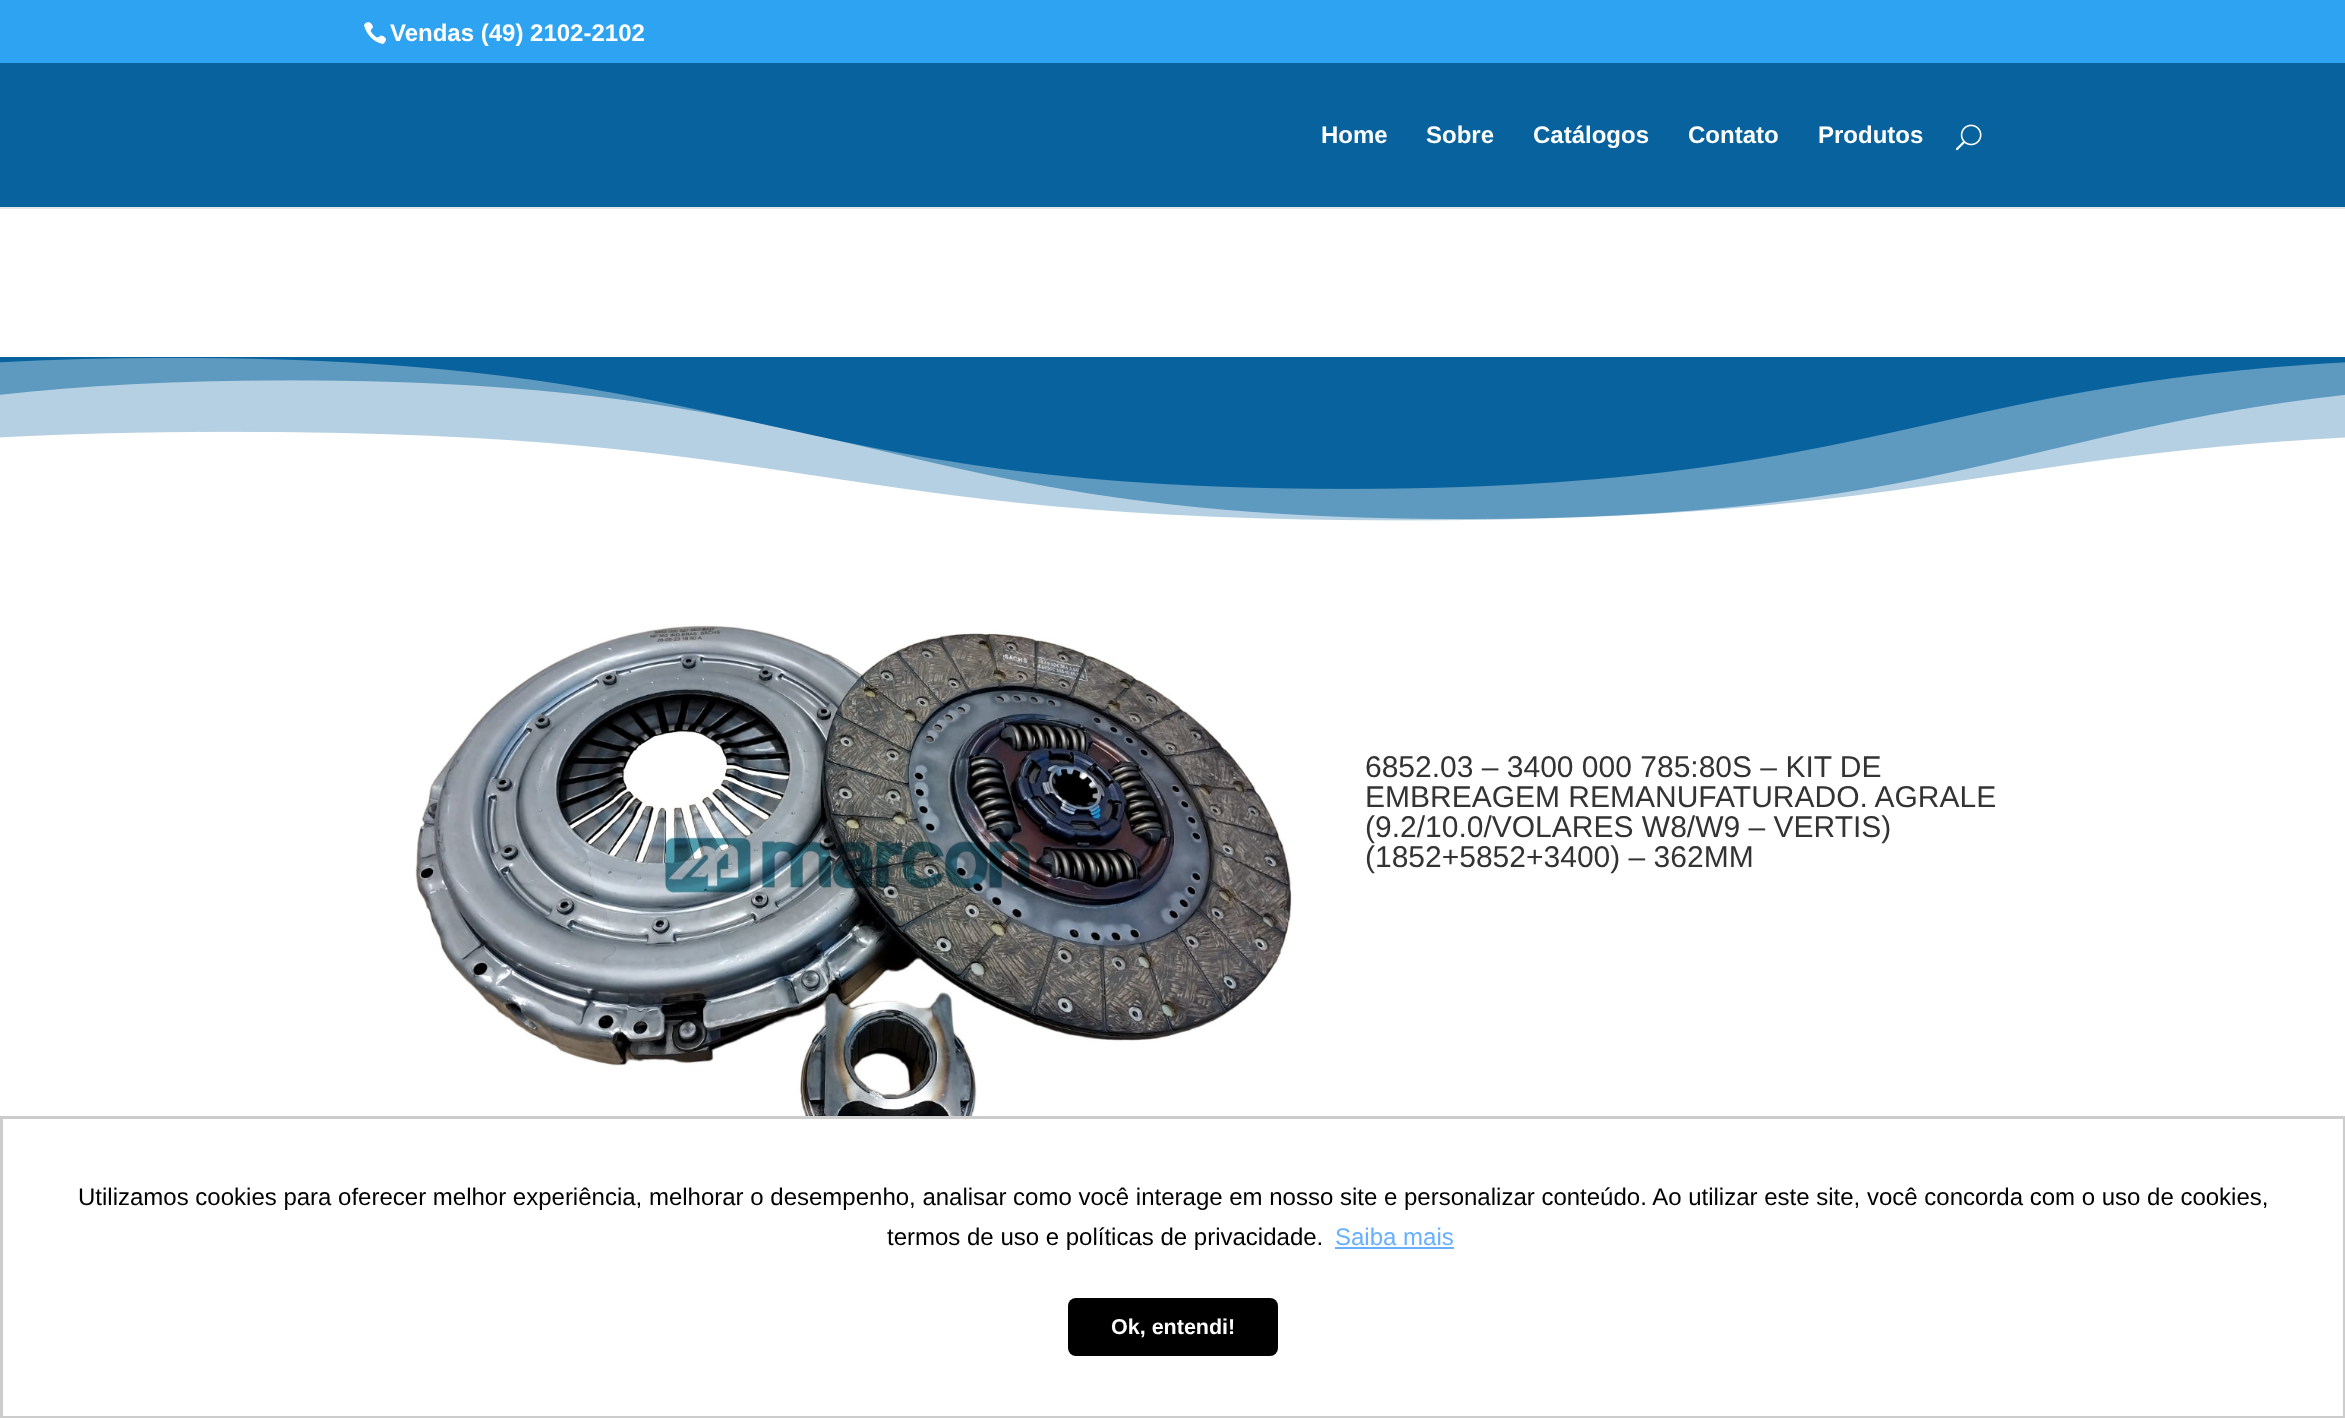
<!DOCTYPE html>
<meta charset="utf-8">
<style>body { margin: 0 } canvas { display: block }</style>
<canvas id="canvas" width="2345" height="1418"></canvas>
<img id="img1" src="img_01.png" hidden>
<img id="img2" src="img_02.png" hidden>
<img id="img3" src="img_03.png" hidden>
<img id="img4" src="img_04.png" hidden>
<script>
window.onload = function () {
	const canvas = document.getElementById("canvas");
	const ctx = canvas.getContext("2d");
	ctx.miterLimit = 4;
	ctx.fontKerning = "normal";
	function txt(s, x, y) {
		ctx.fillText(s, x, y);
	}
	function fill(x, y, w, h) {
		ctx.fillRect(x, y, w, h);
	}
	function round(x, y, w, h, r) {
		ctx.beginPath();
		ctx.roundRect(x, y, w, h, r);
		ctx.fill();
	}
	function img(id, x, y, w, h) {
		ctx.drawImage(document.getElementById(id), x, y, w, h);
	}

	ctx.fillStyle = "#FFFFFF";
	fill(0, 0, 2345, 1418);
	ctx.fillStyle = "#2EA3F2";
	fill(0, 0, 2345, 63);
	img("img1", 364, 22, 22, 22);
	ctx.fillStyle = "#E6E6E6";
	fill(0, 207, 2345, 2);
	ctx.fillStyle = "#07629D";
	fill(0, 63, 2345, 144);
	img("img2", 1955, 124, 27, 27);
	img("img3", 0, 357, 2345, 164);
	img("img4", 415, 625, 916, 491);
	ctx.strokeStyle = "#CCCCCC";
	ctx.lineWidth = 3;
	ctx.strokeRect(1.5, 1117.5, 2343, 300);
	ctx.fillStyle = "#66B0FF";
	fill(1335, 1247, 119, 2);
	ctx.fillStyle = "#000000";
	round(1068, 1298, 210, 58, 8);
	ctx.font = "bold 24px Liberation Sans";
	ctx.fillStyle = "#FFFFFF";
	txt("Vendas (49) 2102-2102", 390, 41);
	txt("Home", 1321, 143);
	txt("Sobre", 1426, 143);
	txt("Catálogos", 1533, 143);
	txt("Contato", 1688, 143);
	txt("Produtos", 1818, 143);
	ctx.font = "30px Liberation Sans";
	ctx.fillStyle = "#333333";
	txt("6852.03 – 3400 000 785:80S – KIT DE", 1365, 777);
	txt("EMBREAGEM REMANUFATURADO. AGRALE", 1365, 807);
	txt("(9.2/10.0/VOLARES W8/W9 – VERTIS)", 1365, 837);
	txt("(1852+5852+3400) – 362MM", 1365, 867);
	ctx.font = "24px Liberation Sans";
	ctx.fillStyle = "#000000";
	txt("Utilizamos cookies para oferecer melhor experiência, melhorar o desempenho, analisar como você interage em nosso site e personalizar conteúdo. Ao utilizar este site, você concorda com o uso de cookies,", 78, 1205);
	txt("termos de uso e políticas de privacidade.", 887, 1245);
	ctx.fillStyle = "#66B0FF";
	txt("Saiba mais", 1335, 1245);
	ctx.font = "bold 21.5px Liberation Sans";
	ctx.fillStyle = "#FFFFFF";
	txt("Ok, entendi!", 1111, 1334);
};
</script>
